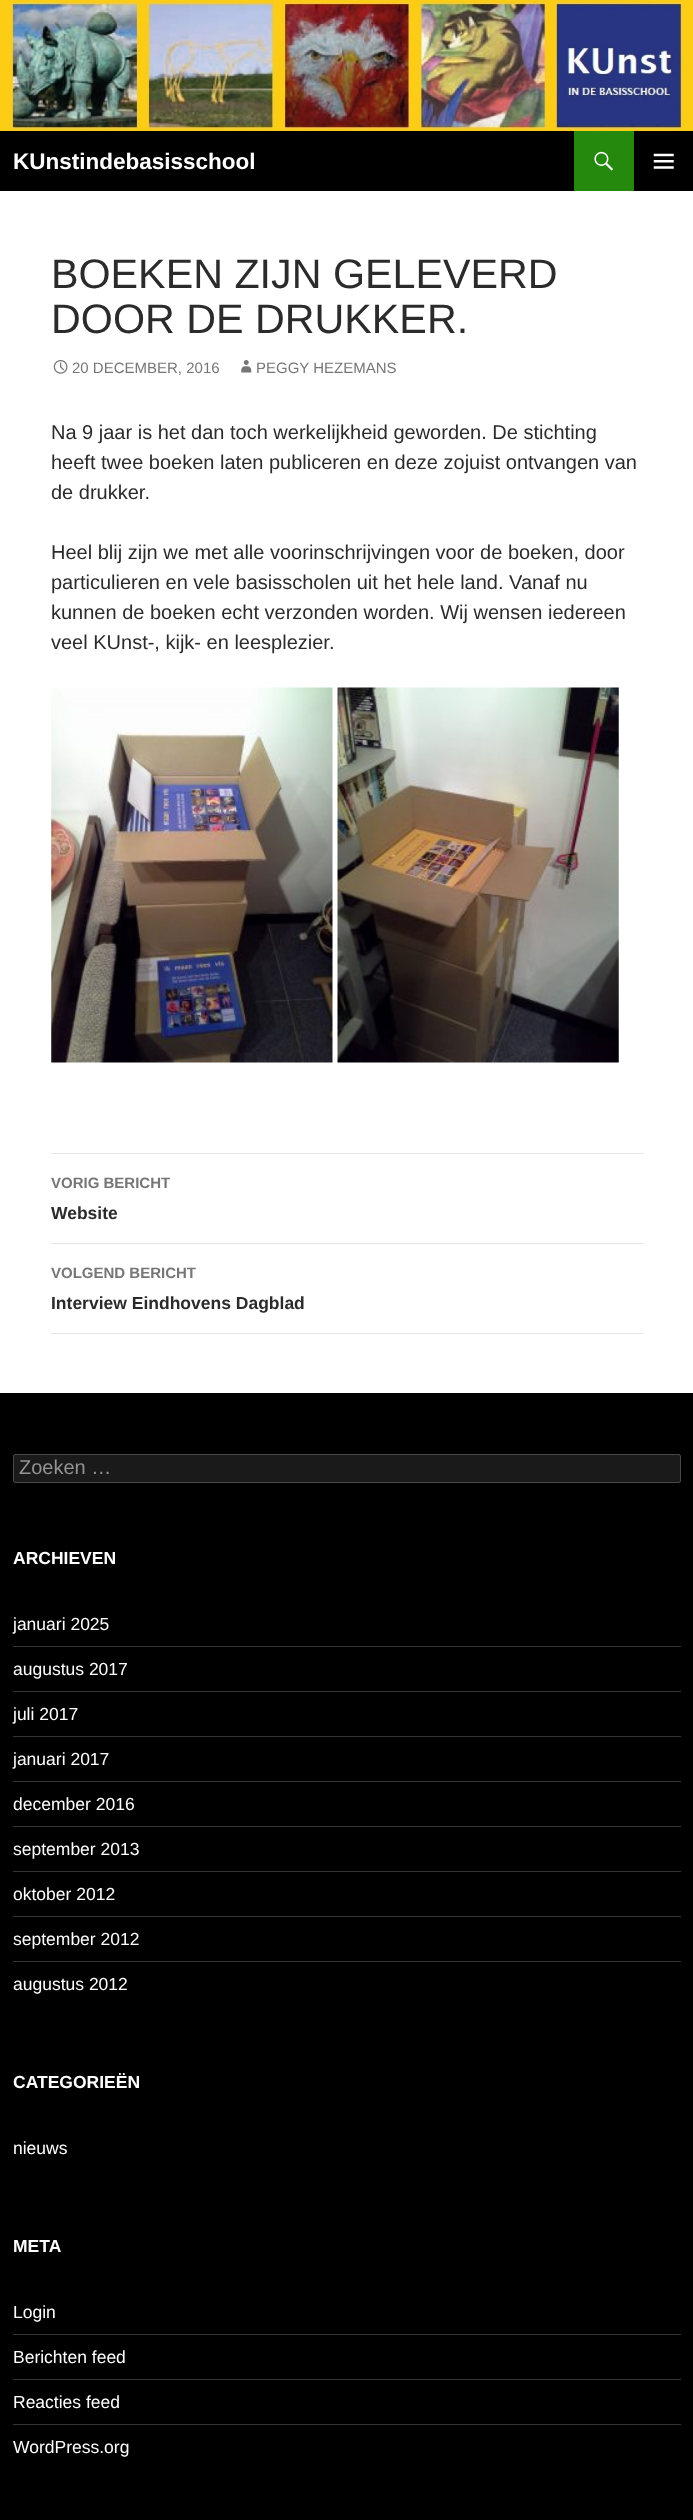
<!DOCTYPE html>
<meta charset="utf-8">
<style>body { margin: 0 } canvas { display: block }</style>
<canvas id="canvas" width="693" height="2520"></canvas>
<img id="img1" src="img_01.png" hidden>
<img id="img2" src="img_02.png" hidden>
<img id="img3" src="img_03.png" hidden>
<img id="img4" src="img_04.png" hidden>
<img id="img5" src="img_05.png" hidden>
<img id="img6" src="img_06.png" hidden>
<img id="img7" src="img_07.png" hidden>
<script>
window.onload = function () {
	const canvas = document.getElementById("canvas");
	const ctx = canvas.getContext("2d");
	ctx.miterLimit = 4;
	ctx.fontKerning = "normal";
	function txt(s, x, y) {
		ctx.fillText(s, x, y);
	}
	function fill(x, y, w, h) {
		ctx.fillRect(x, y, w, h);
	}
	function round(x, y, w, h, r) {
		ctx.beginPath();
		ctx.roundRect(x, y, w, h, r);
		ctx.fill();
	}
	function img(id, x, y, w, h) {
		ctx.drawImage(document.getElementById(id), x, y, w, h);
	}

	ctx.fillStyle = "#FFFFFF";
	fill(0, 0, 693, 2520);
	img("img1", 0, 0, 693, 131);
	ctx.fillStyle = "#000000";
	fill(0, 131, 693, 60);
	ctx.fillStyle = "#24890D";
	fill(574, 131, 60, 60);
	img("img2", 594, 151, 19, 20);
	img("img3", 653, 153, 21, 16);
	img("img4", 53, 360, 15, 14);
	img("img5", 241, 360, 11, 13);
	img("img6", 51, 687, 282, 376);
	img("img7", 337, 687, 282, 376);
	ctx.fillStyle = "#E6E6E6";
	fill(51, 1153, 593, 1);
	fill(51, 1243, 593, 1);
	fill(51, 1333, 593, 1);
	ctx.fillStyle = "#000000";
	fill(0, 1393, 693, 1127);
	ctx.fillStyle = "#1A1A1A";
	round(13, 1454, 668, 29, 2.5);
	ctx.beginPath();
	ctx.roundRect(13.5, 1454.5, 667, 28, 2);
	ctx.strokeStyle = "rgba(255, 255, 255, 0.2)";
	ctx.stroke();
	ctx.fillStyle = "#333333";
	fill(13, 1646, 668, 1);
	fill(13, 1691, 668, 1);
	fill(13, 1736, 668, 1);
	fill(13, 1781, 668, 1);
	fill(13, 1826, 668, 1);
	fill(13, 1871, 668, 1);
	fill(13, 1916, 668, 1);
	fill(13, 1961, 668, 1);
	fill(13, 2334, 668, 1);
	fill(13, 2379, 668, 1);
	fill(13, 2424, 668, 1);
	ctx.font = "bold 22.5px Liberation Sans";
	ctx.fillStyle = "#FFFFFF";
	txt("KUnstindebasisschool", 13, 169);
	ctx.font = "41.25px Liberation Sans";
	ctx.fillStyle = "#2B2B2B";
	txt("BOEKEN ZIJN GELEVERD", 51, 288);
	txt("DOOR DE DRUKKER.", 51, 333);
	ctx.font = "15px Liberation Sans";
	ctx.fillStyle = "#767676";
	txt("20 DECEMBER, 2016", 72, 373);
	txt("PEGGY HEZEMANS", 256, 373);
	ctx.font = "20px Liberation Sans";
	ctx.fillStyle = "#2B2B2B";
	txt("Na 9 jaar is het dan toch werkelijkheid geworden. De stichting", 51, 439);
	txt("heeft twee boeken laten publiceren en deze zojuist ontvangen van", 51, 469);
	txt("de drukker.", 51, 499);
	txt("Heel blij zijn we met alle voorinschrijvingen voor de boeken, door", 51, 559);
	txt("particulieren en vele basisscholen uit het hele land. Vanaf nu", 51, 589);
	txt("kunnen de boeken echt verzonden worden. Wij wensen iedereen", 51, 619);
	txt("veel KUnst-, kijk- en leesplezier.", 51, 649);
	ctx.font = "bold 15px Liberation Sans";
	ctx.fillStyle = "#767676";
	txt("VORIG BERICHT", 51, 1188);
	ctx.font = "bold 17.5px Liberation Sans";
	ctx.fillStyle = "#2B2B2B";
	txt("Website", 51, 1219);
	ctx.font = "bold 15px Liberation Sans";
	ctx.fillStyle = "#767676";
	txt("VOLGEND BERICHT", 51, 1278);
	ctx.font = "bold 17.5px Liberation Sans";
	ctx.fillStyle = "#2B2B2B";
	txt("Interview Eindhovens Dagblad", 51, 1309);
	ctx.font = "20px Liberation Sans";
	ctx.fillStyle = "#939393";
	txt("Zoeken …", 19, 1474);
	ctx.font = "bold 17.5px Liberation Sans";
	ctx.fillStyle = "#FFFFFF";
	txt("ARCHIEVEN", 13, 1564);
	ctx.font = "17.5px Liberation Sans";
	txt("januari 2025", 13, 1630);
	txt("augustus 2017", 13, 1675);
	txt("juli 2017", 13, 1720);
	txt("januari 2017", 13, 1765);
	txt("december 2016", 13, 1810);
	txt("september 2013", 13, 1855);
	txt("oktober 2012", 13, 1900);
	txt("september 2012", 13, 1945);
	txt("augustus 2012", 13, 1990);
	ctx.font = "bold 17.5px Liberation Sans";
	txt("CATEGORIEËN", 13, 2088);
	ctx.font = "17.5px Liberation Sans";
	txt("nieuws", 13, 2154);
	ctx.font = "bold 17.5px Liberation Sans";
	txt("META", 13, 2252);
	ctx.font = "17.5px Liberation Sans";
	txt("Login", 13, 2318);
	txt("Berichten feed", 13, 2363);
	txt("Reacties feed", 13, 2408);
	txt("WordPress.org", 13, 2453);
};
</script>
